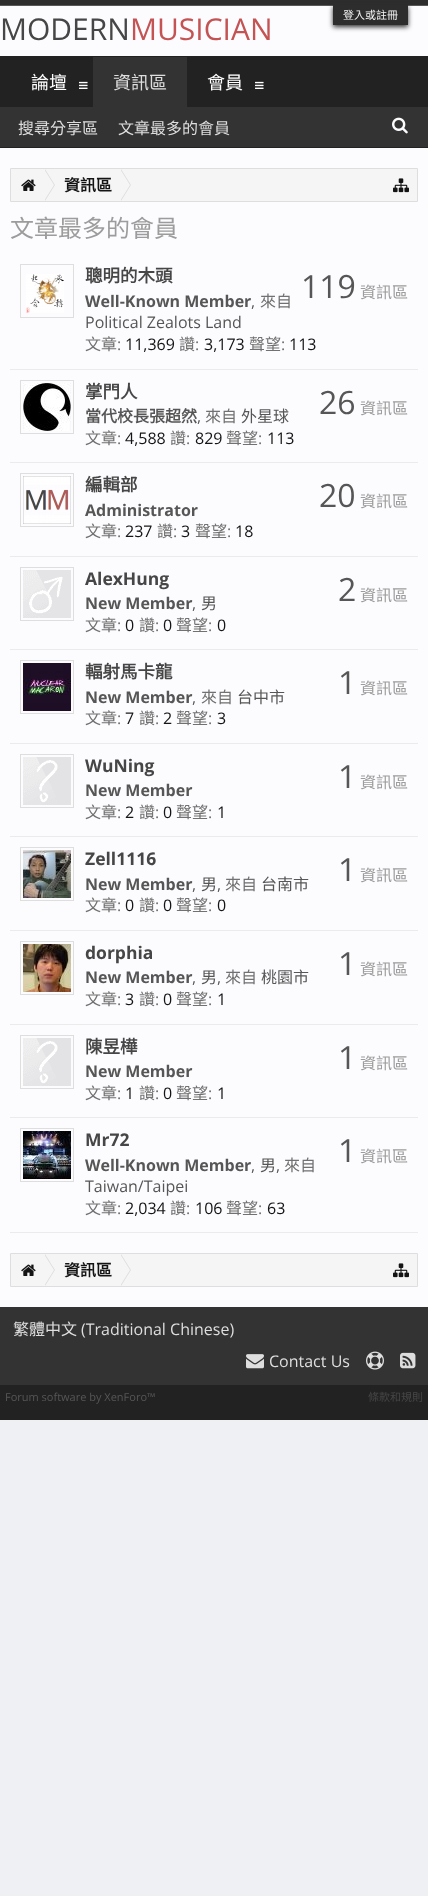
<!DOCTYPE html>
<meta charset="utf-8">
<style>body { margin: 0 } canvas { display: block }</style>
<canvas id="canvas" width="428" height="1896"></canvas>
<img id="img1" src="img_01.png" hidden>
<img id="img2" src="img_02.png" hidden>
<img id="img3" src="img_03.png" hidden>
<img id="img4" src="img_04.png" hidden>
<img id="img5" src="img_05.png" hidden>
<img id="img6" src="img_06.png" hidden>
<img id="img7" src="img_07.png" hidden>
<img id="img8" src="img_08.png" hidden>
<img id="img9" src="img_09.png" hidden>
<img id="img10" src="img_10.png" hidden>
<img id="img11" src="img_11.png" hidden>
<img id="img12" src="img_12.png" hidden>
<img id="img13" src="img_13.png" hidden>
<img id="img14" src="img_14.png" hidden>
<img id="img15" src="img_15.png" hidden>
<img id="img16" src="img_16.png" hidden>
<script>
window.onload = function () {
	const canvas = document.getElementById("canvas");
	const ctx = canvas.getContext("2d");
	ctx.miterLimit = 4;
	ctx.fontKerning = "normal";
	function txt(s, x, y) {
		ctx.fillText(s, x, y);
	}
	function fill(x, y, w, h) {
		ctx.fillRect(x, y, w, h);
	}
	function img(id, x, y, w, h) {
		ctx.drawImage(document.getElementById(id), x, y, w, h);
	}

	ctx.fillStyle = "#EEF0F4";
	fill(0, 0, 428, 1896);
	ctx.fillStyle = "#2D2D2D";
	fill(0, 0, 428, 5);
	ctx.fillStyle = "#585858";
	fill(0, 5, 428, 1);
	ctx.fillStyle = "#FCFCFF";
	fill(0, 6, 428, 50);
	ctx.fillStyle = "#2D2D2D";
	ctx.filter = "blur(2.5px)";
	ctx.beginPath();
	ctx.rect(333, 7, 75, 20);
	ctx.fill();
	ctx.filter = "none";
	fill(333, 5, 75, 20);
	ctx.fillStyle = "#222222";
	fill(0, 56, 428, 92);
	ctx.fillStyle = "#333333";
	fill(93, 57, 94, 50);
	fill(0, 107, 428, 40);
	img("img1", 79, 81, 9, 8);
	img("img1", 255, 81, 9, 8);
	img("img2", 392, 117, 16, 17);
	ctx.fillStyle = "#FCFCFF";
	fill(0, 148, 428, 1159);
	ctx.fillStyle = "#F5F5F5";
	ctx.beginPath();
	ctx.rect(10.5, 168.5, 407, 33);
	ctx.fill();
	ctx.strokeStyle = "#DEDEDE";
	ctx.stroke();
	img("img3", 21, 179, 15, 12);
	ctx.fillStyle = "#DEDEDE";
	ctx.beginPath();
	ctx.moveTo(45, 201);
	ctx.lineTo(45, 169);
	ctx.lineTo(55, 185);
	ctx.closePath();
	ctx.fill();
	ctx.fillStyle = "#F5F5F5";
	ctx.beginPath();
	ctx.moveTo(44, 201);
	ctx.lineTo(44, 169);
	ctx.lineTo(54, 185);
	ctx.closePath();
	ctx.fill();
	ctx.fillStyle = "#DEDEDE";
	ctx.beginPath();
	ctx.moveTo(121, 201);
	ctx.lineTo(121, 169);
	ctx.lineTo(131, 185);
	ctx.closePath();
	ctx.fill();
	ctx.fillStyle = "#F5F5F5";
	ctx.beginPath();
	ctx.moveTo(120, 201);
	ctx.lineTo(120, 169);
	ctx.lineTo(130, 185);
	ctx.closePath();
	ctx.fill();
	img("img4", 393, 178, 16, 15);
	ctx.fillStyle = "#EBEBEB";
	fill(10, 369, 408, 1);
	img("img5", 26, 274, 38, 39);
	ctx.strokeRect(20.5, 264.5, 53, 53);
	fill(10, 462, 408, 1);
	img("img6", 23, 383, 48, 48);
	ctx.strokeRect(20.5, 380.5, 53, 53);
	fill(10, 556, 408, 1);
	img("img7", 23, 476, 48, 48);
	ctx.strokeRect(20.5, 473.5, 53, 53);
	fill(10, 649, 408, 1);
	img("img8", 23, 570, 48, 48);
	ctx.strokeRect(20.5, 567.5, 53, 53);
	fill(10, 743, 408, 1);
	img("img9", 23, 663, 48, 48);
	ctx.strokeRect(20.5, 660.5, 53, 53);
	fill(10, 836, 408, 1);
	img("img10", 23, 757, 48, 48);
	ctx.strokeRect(20.5, 754.5, 53, 53);
	fill(10, 930, 408, 1);
	img("img11", 23, 850, 48, 48);
	ctx.strokeRect(20.5, 847.5, 53, 53);
	fill(10, 1024, 408, 1);
	img("img12", 23, 944, 48, 48);
	ctx.strokeRect(20.5, 941.5, 53, 53);
	fill(10, 1117, 408, 1);
	img("img10", 23, 1038, 48, 48);
	ctx.strokeRect(20.5, 1035.5, 53, 53);
	fill(10, 1232, 408, 1);
	img("img13", 23, 1131, 48, 48);
	ctx.strokeRect(20.5, 1128.5, 53, 53);
	ctx.fillStyle = "#F5F5F5";
	ctx.beginPath();
	ctx.rect(10.5, 1253.5, 407, 33);
	ctx.fill();
	ctx.stroke();
	img("img3", 21, 1264, 15, 12);
	ctx.fillStyle = "#DEDEDE";
	ctx.beginPath();
	ctx.moveTo(45, 1286);
	ctx.lineTo(45, 1254);
	ctx.lineTo(55, 1270);
	ctx.closePath();
	ctx.fill();
	ctx.fillStyle = "#F5F5F5";
	ctx.beginPath();
	ctx.moveTo(44, 1286);
	ctx.lineTo(44, 1254);
	ctx.lineTo(54, 1270);
	ctx.closePath();
	ctx.fill();
	ctx.fillStyle = "#DEDEDE";
	ctx.beginPath();
	ctx.moveTo(121, 1286);
	ctx.lineTo(121, 1254);
	ctx.lineTo(131, 1270);
	ctx.closePath();
	ctx.fill();
	ctx.fillStyle = "#F5F5F5";
	ctx.beginPath();
	ctx.moveTo(120, 1286);
	ctx.lineTo(120, 1254);
	ctx.lineTo(130, 1270);
	ctx.closePath();
	ctx.fill();
	img("img4", 393, 1263, 16, 15);
	ctx.fillStyle = "#333333";
	fill(0, 1307, 428, 78);
	img("img14", 246, 1354, 18, 15);
	img("img15", 366, 1351, 18, 19);
	img("img16", 400, 1352, 16, 17);
	ctx.fillStyle = "#222222";
	fill(0, 1385, 428, 35);
	ctx.font = "11px Noto Sans CJK TC";
	ctx.fillStyle = "#F5F5F5";
	txt("登入或註冊", 343, 19);
	ctx.font = "30px Open Sans";
	ctx.fillStyle = "#464646";
	txt("MODERN", 0, 40);
	ctx.fillStyle = "#C45454";
	txt("MUSICIAN", 130, 40);
	ctx.font = "18px Noto Sans CJK TC";
	ctx.fillStyle = "#DEDEDE";
	txt("資訊區", 113, 89);
	ctx.font = "16px Noto Sans CJK TC";
	txt("搜尋分享區", 18, 134);
	txt("文章最多的會員", 118, 134);
	ctx.font = "18px Noto Sans CJK TC";
	ctx.fillStyle = "#FFFFFF";
	txt("論壇", 31, 89);
	txt("會員", 207, 89);
	ctx.font = "bold 16px Noto Sans CJK TC";
	ctx.fillStyle = "#141414";
	txt("資訊區", 64, 191);
	ctx.font = "24px Noto Sans CJK TC";
	ctx.fillStyle = "#9C9C9C";
	txt("文章最多的會員", 10, 237);
	ctx.font = "bold 17.5px Noto Sans CJK TC";
	ctx.fillStyle = "#464646";
	txt("聰明的木頭", 85, 282);
	ctx.font = "bold 16px Open Sans";
	ctx.fillStyle = "#565656";
	txt("Well-Known Member", 85, 307);
	ctx.font = "16px Open Sans";
	txt(",", 251, 307);
	ctx.font = "16px Noto Sans CJK TC";
	ctx.fillStyle = "#717171";
	txt("來自", 260, 307);
	ctx.font = "16px Open Sans";
	ctx.fillStyle = "#565656";
	txt("Political Zealots Land", 85, 328);
	ctx.font = "16px Noto Sans CJK TC";
	ctx.fillStyle = "#717171";
	txt("文章", 85, 350);
	ctx.font = "16px Open Sans";
	txt(":", 117, 350);
	ctx.fillStyle = "#141414";
	txt("11,369", 125, 350);
	ctx.font = "16px Noto Sans CJK TC";
	ctx.fillStyle = "#717171";
	txt("讚", 179, 350);
	ctx.font = "16px Open Sans";
	txt(":", 195, 350);
	ctx.fillStyle = "#141414";
	txt("3,173", 204, 350);
	ctx.font = "16px Noto Sans CJK TC";
	ctx.fillStyle = "#717171";
	txt("聲望", 249, 350);
	ctx.font = "16px Open Sans";
	txt(":", 281, 350);
	ctx.fillStyle = "#141414";
	txt("113", 289, 350);
	ctx.font = "32px Open Sans";
	ctx.fillStyle = "#565656";
	txt("119", 301, 298);
	ctx.font = "16px Noto Sans CJK TC";
	ctx.fillStyle = "#9C9C9C";
	txt("資訊區", 360, 298);
	ctx.font = "bold 17.5px Noto Sans CJK TC";
	ctx.fillStyle = "#464646";
	txt("掌門人", 85, 398);
	ctx.font = "bold 16px Noto Sans CJK TC";
	ctx.fillStyle = "#565656";
	txt("當代校長張超然", 85, 422);
	ctx.font = "16px Open Sans";
	txt(",", 197, 422);
	ctx.font = "16px Noto Sans CJK TC";
	ctx.fillStyle = "#717171";
	txt("來自", 205, 422);
	ctx.fillStyle = "#565656";
	txt("外星球", 241, 422);
	ctx.fillStyle = "#717171";
	txt("文章", 85, 444);
	ctx.font = "16px Open Sans";
	txt(":", 117, 444);
	ctx.fillStyle = "#141414";
	txt("4,588", 125, 444);
	ctx.font = "16px Noto Sans CJK TC";
	ctx.fillStyle = "#717171";
	txt("讚", 170, 444);
	ctx.font = "16px Open Sans";
	txt(":", 186, 444);
	ctx.fillStyle = "#141414";
	txt("829", 195, 444);
	ctx.font = "16px Noto Sans CJK TC";
	ctx.fillStyle = "#717171";
	txt("聲望", 226, 444);
	ctx.font = "16px Open Sans";
	txt(":", 258, 444);
	ctx.fillStyle = "#141414";
	txt("113", 267, 444);
	ctx.font = "32px Open Sans";
	ctx.fillStyle = "#565656";
	txt("26", 319, 414);
	ctx.font = "16px Noto Sans CJK TC";
	ctx.fillStyle = "#9C9C9C";
	txt("資訊區", 360, 414);
	ctx.font = "bold 17.5px Noto Sans CJK TC";
	ctx.fillStyle = "#464646";
	txt("編輯部", 85, 491);
	ctx.font = "bold 16px Open Sans";
	ctx.fillStyle = "#565656";
	txt("Administrator", 85, 516);
	ctx.font = "16px Noto Sans CJK TC";
	ctx.fillStyle = "#717171";
	txt("文章", 85, 537);
	ctx.font = "16px Open Sans";
	txt(":", 117, 537);
	ctx.fillStyle = "#141414";
	txt("237", 125, 537);
	ctx.font = "16px Noto Sans CJK TC";
	ctx.fillStyle = "#717171";
	txt("讚", 157, 537);
	ctx.font = "16px Open Sans";
	txt(":", 173, 537);
	ctx.fillStyle = "#141414";
	txt("3", 181, 537);
	ctx.font = "16px Noto Sans CJK TC";
	ctx.fillStyle = "#717171";
	txt("聲望", 195, 537);
	ctx.font = "16px Open Sans";
	txt(":", 227, 537);
	ctx.fillStyle = "#141414";
	txt("18", 235, 537);
	ctx.font = "32px Open Sans";
	ctx.fillStyle = "#565656";
	txt("20", 319, 507);
	ctx.font = "16px Noto Sans CJK TC";
	ctx.fillStyle = "#9C9C9C";
	txt("資訊區", 360, 507);
	ctx.font = "bold 17.5px Open Sans";
	ctx.fillStyle = "#464646";
	txt("AlexHung", 85, 585);
	ctx.font = "bold 16px Open Sans";
	ctx.fillStyle = "#565656";
	txt("New Member", 85, 609);
	ctx.font = "16px Open Sans";
	txt(",", 192, 609);
	ctx.font = "16px Noto Sans CJK TC";
	txt("男", 201, 609);
	ctx.fillStyle = "#717171";
	txt("文章", 85, 631);
	ctx.font = "16px Open Sans";
	txt(":", 117, 631);
	ctx.fillStyle = "#141414";
	txt("0", 125, 631);
	ctx.font = "16px Noto Sans CJK TC";
	ctx.fillStyle = "#717171";
	txt("讚", 139, 631);
	ctx.font = "16px Open Sans";
	txt(":", 155, 631);
	ctx.fillStyle = "#141414";
	txt("0", 163, 631);
	ctx.font = "16px Noto Sans CJK TC";
	ctx.fillStyle = "#717171";
	txt("聲望", 176, 631);
	ctx.font = "16px Open Sans";
	txt(":", 208, 631);
	ctx.fillStyle = "#141414";
	txt("0", 217, 631);
	ctx.font = "32px Open Sans";
	ctx.fillStyle = "#565656";
	txt("2", 338, 601);
	ctx.font = "16px Noto Sans CJK TC";
	ctx.fillStyle = "#9C9C9C";
	txt("資訊區", 360, 601);
	ctx.font = "bold 17.5px Noto Sans CJK TC";
	ctx.fillStyle = "#464646";
	txt("輻射馬卡龍", 85, 678);
	ctx.font = "bold 16px Open Sans";
	ctx.fillStyle = "#565656";
	txt("New Member", 85, 703);
	ctx.font = "16px Open Sans";
	txt(",", 192, 703);
	ctx.font = "16px Noto Sans CJK TC";
	ctx.fillStyle = "#717171";
	txt("來自", 201, 703);
	ctx.fillStyle = "#565656";
	txt("台中市", 237, 703);
	ctx.fillStyle = "#717171";
	txt("文章", 85, 724);
	ctx.font = "16px Open Sans";
	txt(":", 117, 724);
	ctx.fillStyle = "#141414";
	txt("7", 125, 724);
	ctx.font = "16px Noto Sans CJK TC";
	ctx.fillStyle = "#717171";
	txt("讚", 139, 724);
	ctx.font = "16px Open Sans";
	txt(":", 155, 724);
	ctx.fillStyle = "#141414";
	txt("2", 163, 724);
	ctx.font = "16px Noto Sans CJK TC";
	ctx.fillStyle = "#717171";
	txt("聲望", 176, 724);
	ctx.font = "16px Open Sans";
	txt(":", 208, 724);
	ctx.fillStyle = "#141414";
	txt("3", 217, 724);
	ctx.font = "32px Open Sans";
	ctx.fillStyle = "#565656";
	txt("1", 338, 694);
	ctx.font = "16px Noto Sans CJK TC";
	ctx.fillStyle = "#9C9C9C";
	txt("資訊區", 360, 694);
	ctx.font = "bold 17.5px Open Sans";
	ctx.fillStyle = "#464646";
	txt("WuNing", 85, 772);
	ctx.font = "bold 16px Open Sans";
	ctx.fillStyle = "#565656";
	txt("New Member", 85, 796);
	ctx.font = "16px Noto Sans CJK TC";
	ctx.fillStyle = "#717171";
	txt("文章", 85, 818);
	ctx.font = "16px Open Sans";
	txt(":", 117, 818);
	ctx.fillStyle = "#141414";
	txt("2", 125, 818);
	ctx.font = "16px Noto Sans CJK TC";
	ctx.fillStyle = "#717171";
	txt("讚", 139, 818);
	ctx.font = "16px Open Sans";
	txt(":", 155, 818);
	ctx.fillStyle = "#141414";
	txt("0", 163, 818);
	ctx.font = "16px Noto Sans CJK TC";
	ctx.fillStyle = "#717171";
	txt("聲望", 176, 818);
	ctx.font = "16px Open Sans";
	txt(":", 208, 818);
	ctx.fillStyle = "#141414";
	txt("1", 217, 818);
	ctx.font = "32px Open Sans";
	ctx.fillStyle = "#565656";
	txt("1", 338, 788);
	ctx.font = "16px Noto Sans CJK TC";
	ctx.fillStyle = "#9C9C9C";
	txt("資訊區", 360, 788);
	ctx.font = "bold 17.5px Open Sans";
	ctx.fillStyle = "#464646";
	txt("Zell1116", 85, 865);
	ctx.font = "bold 16px Open Sans";
	ctx.fillStyle = "#565656";
	txt("New Member", 85, 890);
	ctx.font = "16px Open Sans";
	txt(",", 192, 890);
	ctx.font = "16px Noto Sans CJK TC";
	txt("男", 201, 890);
	ctx.font = "16px Open Sans";
	txt(",", 217, 890);
	ctx.font = "16px Noto Sans CJK TC";
	ctx.fillStyle = "#717171";
	txt("來自", 225, 890);
	ctx.fillStyle = "#565656";
	txt("台南市", 261, 890);
	ctx.fillStyle = "#717171";
	txt("文章", 85, 911);
	ctx.font = "16px Open Sans";
	txt(":", 117, 911);
	ctx.fillStyle = "#141414";
	txt("0", 125, 911);
	ctx.font = "16px Noto Sans CJK TC";
	ctx.fillStyle = "#717171";
	txt("讚", 139, 911);
	ctx.font = "16px Open Sans";
	txt(":", 155, 911);
	ctx.fillStyle = "#141414";
	txt("0", 163, 911);
	ctx.font = "16px Noto Sans CJK TC";
	ctx.fillStyle = "#717171";
	txt("聲望", 176, 911);
	ctx.font = "16px Open Sans";
	txt(":", 208, 911);
	ctx.fillStyle = "#141414";
	txt("0", 217, 911);
	ctx.font = "32px Open Sans";
	ctx.fillStyle = "#565656";
	txt("1", 338, 881);
	ctx.font = "16px Noto Sans CJK TC";
	ctx.fillStyle = "#9C9C9C";
	txt("資訊區", 360, 881);
	ctx.font = "bold 17.5px Open Sans";
	ctx.fillStyle = "#464646";
	txt("dorphia", 85, 959);
	ctx.font = "bold 16px Open Sans";
	ctx.fillStyle = "#565656";
	txt("New Member", 85, 983);
	ctx.font = "16px Open Sans";
	txt(",", 192, 983);
	ctx.font = "16px Noto Sans CJK TC";
	txt("男", 201, 983);
	ctx.font = "16px Open Sans";
	txt(",", 217, 983);
	ctx.font = "16px Noto Sans CJK TC";
	ctx.fillStyle = "#717171";
	txt("來自", 225, 983);
	ctx.fillStyle = "#565656";
	txt("桃園市", 261, 983);
	ctx.fillStyle = "#717171";
	txt("文章", 85, 1005);
	ctx.font = "16px Open Sans";
	txt(":", 117, 1005);
	ctx.fillStyle = "#141414";
	txt("3", 125, 1005);
	ctx.font = "16px Noto Sans CJK TC";
	ctx.fillStyle = "#717171";
	txt("讚", 139, 1005);
	ctx.font = "16px Open Sans";
	txt(":", 155, 1005);
	ctx.fillStyle = "#141414";
	txt("0", 163, 1005);
	ctx.font = "16px Noto Sans CJK TC";
	ctx.fillStyle = "#717171";
	txt("聲望", 176, 1005);
	ctx.font = "16px Open Sans";
	txt(":", 208, 1005);
	ctx.fillStyle = "#141414";
	txt("1", 217, 1005);
	ctx.font = "32px Open Sans";
	ctx.fillStyle = "#565656";
	txt("1", 338, 975);
	ctx.font = "16px Noto Sans CJK TC";
	ctx.fillStyle = "#9C9C9C";
	txt("資訊區", 360, 975);
	ctx.font = "bold 17.5px Noto Sans CJK TC";
	ctx.fillStyle = "#464646";
	txt("陳昱樺", 85, 1053);
	ctx.font = "bold 16px Open Sans";
	ctx.fillStyle = "#565656";
	txt("New Member", 85, 1077);
	ctx.font = "16px Noto Sans CJK TC";
	ctx.fillStyle = "#717171";
	txt("文章", 85, 1099);
	ctx.font = "16px Open Sans";
	txt(":", 117, 1099);
	ctx.fillStyle = "#141414";
	txt("1", 125, 1099);
	ctx.font = "16px Noto Sans CJK TC";
	ctx.fillStyle = "#717171";
	txt("讚", 139, 1099);
	ctx.font = "16px Open Sans";
	txt(":", 155, 1099);
	ctx.fillStyle = "#141414";
	txt("0", 163, 1099);
	ctx.font = "16px Noto Sans CJK TC";
	ctx.fillStyle = "#717171";
	txt("聲望", 176, 1099);
	ctx.font = "16px Open Sans";
	txt(":", 208, 1099);
	ctx.fillStyle = "#141414";
	txt("1", 217, 1099);
	ctx.font = "32px Open Sans";
	ctx.fillStyle = "#565656";
	txt("1", 338, 1069);
	ctx.font = "16px Noto Sans CJK TC";
	ctx.fillStyle = "#9C9C9C";
	txt("資訊區", 360, 1069);
	ctx.font = "bold 17.5px Open Sans";
	ctx.fillStyle = "#464646";
	txt("Mr72", 85, 1146);
	ctx.font = "bold 16px Open Sans";
	ctx.fillStyle = "#565656";
	txt("Well-Known Member", 85, 1171);
	ctx.font = "16px Open Sans";
	txt(",", 251, 1171);
	ctx.font = "16px Noto Sans CJK TC";
	txt("男", 260, 1171);
	ctx.font = "16px Open Sans";
	txt(",", 276, 1171);
	ctx.font = "16px Noto Sans CJK TC";
	ctx.fillStyle = "#717171";
	txt("來自", 284, 1171);
	ctx.font = "16px Open Sans";
	ctx.fillStyle = "#565656";
	txt("Taiwan/Taipei", 85, 1192);
	ctx.font = "16px Noto Sans CJK TC";
	ctx.fillStyle = "#717171";
	txt("文章", 85, 1214);
	ctx.font = "16px Open Sans";
	txt(":", 117, 1214);
	ctx.fillStyle = "#141414";
	txt("2,034", 125, 1214);
	ctx.font = "16px Noto Sans CJK TC";
	ctx.fillStyle = "#717171";
	txt("讚", 170, 1214);
	ctx.font = "16px Open Sans";
	txt(":", 186, 1214);
	ctx.fillStyle = "#141414";
	txt("106", 195, 1214);
	ctx.font = "16px Noto Sans CJK TC";
	ctx.fillStyle = "#717171";
	txt("聲望", 226, 1214);
	ctx.font = "16px Open Sans";
	txt(":", 258, 1214);
	ctx.fillStyle = "#141414";
	txt("63", 267, 1214);
	ctx.font = "32px Open Sans";
	ctx.fillStyle = "#565656";
	txt("1", 338, 1162);
	ctx.font = "16px Noto Sans CJK TC";
	ctx.fillStyle = "#9C9C9C";
	txt("資訊區", 360, 1162);
	ctx.font = "bold 16px Noto Sans CJK TC";
	ctx.fillStyle = "#141414";
	txt("資訊區", 64, 1276);
	ctx.font = "16px Noto Sans CJK TC";
	ctx.fillStyle = "#DEDEDE";
	txt("繁體中文", 13, 1335);
	ctx.font = "16px Open Sans";
	txt("(Traditional Chinese)", 81, 1335);
	txt("Contact Us", 269, 1367);
	ctx.font = "11px Open Sans";
	ctx.fillStyle = "#565656";
	txt("Forum software by XenForo™", 5, 1401);
	ctx.font = "11px Noto Sans CJK TC";
	ctx.fillStyle = "#464646";
	txt("條款和規則", 368, 1401);
};
</script>
